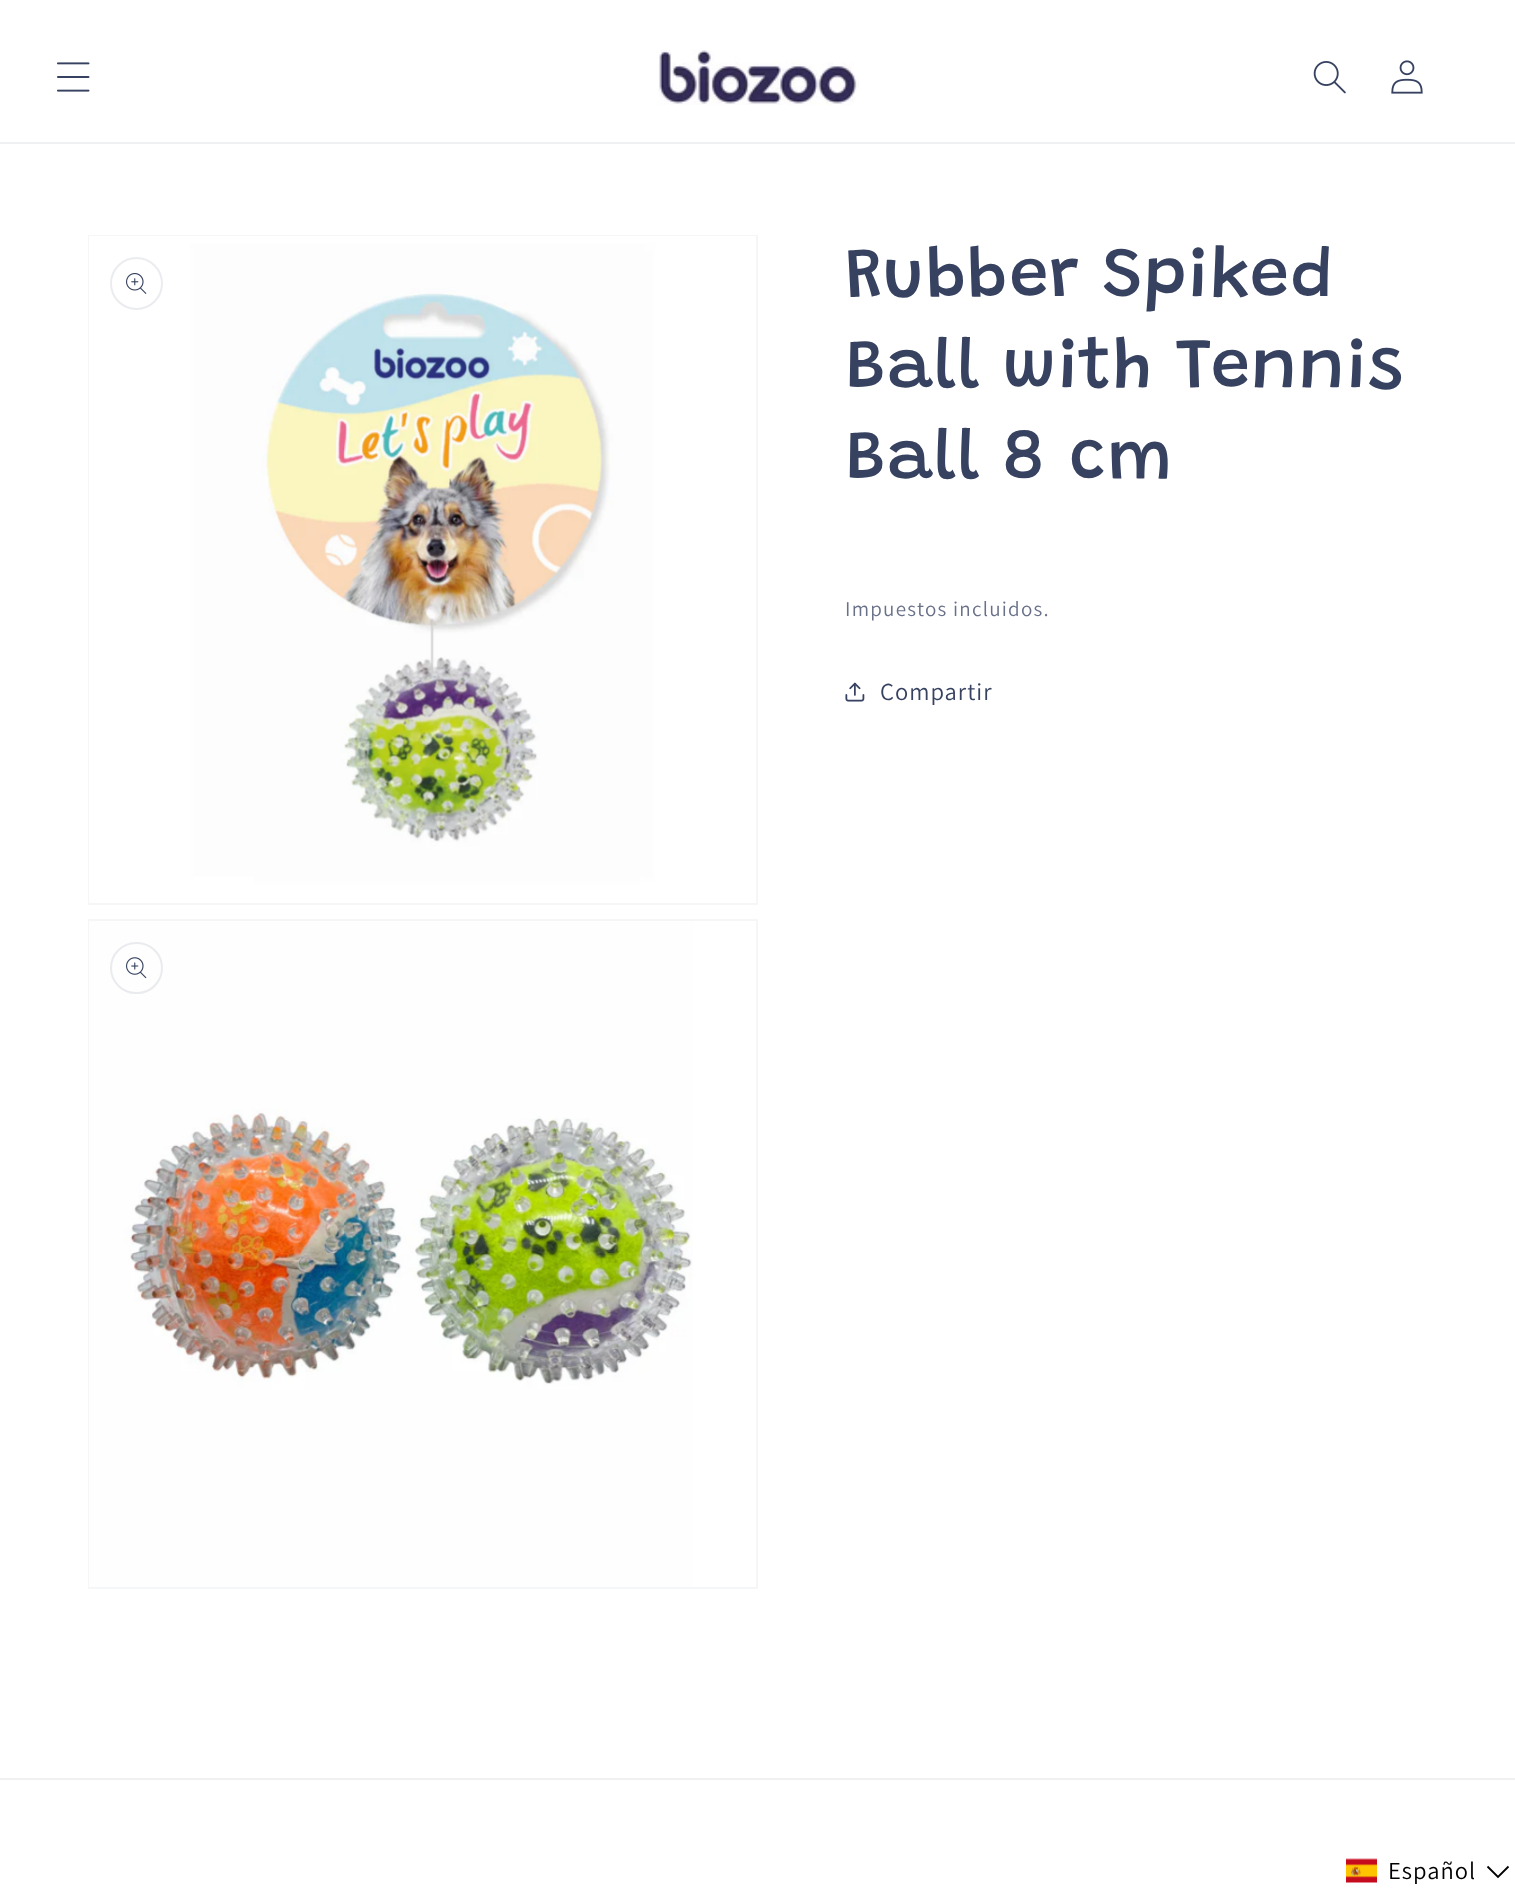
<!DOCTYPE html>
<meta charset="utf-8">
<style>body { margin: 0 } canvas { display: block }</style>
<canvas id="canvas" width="1515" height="1892"></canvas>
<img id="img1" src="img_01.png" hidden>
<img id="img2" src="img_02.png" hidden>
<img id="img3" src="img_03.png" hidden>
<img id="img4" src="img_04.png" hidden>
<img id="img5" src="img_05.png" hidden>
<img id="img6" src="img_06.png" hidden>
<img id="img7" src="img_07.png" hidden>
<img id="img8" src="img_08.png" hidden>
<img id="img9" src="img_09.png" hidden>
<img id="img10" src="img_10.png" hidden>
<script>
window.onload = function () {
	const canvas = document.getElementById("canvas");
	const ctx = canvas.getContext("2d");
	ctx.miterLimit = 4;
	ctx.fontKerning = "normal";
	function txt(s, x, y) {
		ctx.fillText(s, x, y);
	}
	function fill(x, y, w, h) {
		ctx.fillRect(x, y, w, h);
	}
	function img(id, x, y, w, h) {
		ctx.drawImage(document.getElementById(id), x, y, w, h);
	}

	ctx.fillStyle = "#FFFFFF";
	fill(0, 0, 1515, 1892);
	ctx.fillStyle = "#EFF0F2";
	fill(0, 142, 1515, 2);
	img("img1", 57, 62, 33, 30);
	img("img2", 658, 49, 201, 56);
	img("img3", 1313, 61, 33, 33);
	img("img4", 1391, 60, 32, 34);
	ctx.strokeStyle = "#F5F6F7";
	ctx.lineWidth = 2;
	ctx.strokeRect(89, 236, 668, 668);
	img("img5", 89, 236, 667, 667);
	ctx.beginPath();
	ctx.arc(136.5, 283.5, 25.5, 0, Math.PI * 2);
	ctx.strokeStyle = "#EBECEF";
	ctx.stroke();
	img("img6", 126, 273, 21, 21);
	ctx.strokeStyle = "#F5F6F7";
	ctx.strokeRect(89, 920, 668, 668);
	img("img7", 89, 921, 604, 666);
	ctx.beginPath();
	ctx.roundRect(111, 943, 51, 50, 25);
	ctx.strokeStyle = "#EAEBEE";
	ctx.stroke();
	img("img8", 126, 957, 21, 22);
	img("img9", 845, 682, 20, 20);
	fill(0, 1778, 1515, 2);
	img("img10", 1346, 1858, 31, 25);
	ctx.beginPath();
	ctx.moveTo(1487.5, 1866.5);
	ctx.lineTo(1498, 1877);
	ctx.lineTo(1508.5, 1866.5);
	ctx.strokeStyle = "#000000";
	ctx.lineWidth = 1.8;
	ctx.stroke();
	ctx.letterSpacing = "1px";
	ctx.font = "500 70px Grandstander";
	ctx.fillStyle = "#374261";
	txt("Rubber Spiked", 845, 296);
	txt("Ball with Tennis", 845, 387);
	txt("Ball 8 cm", 845, 478);
	ctx.letterSpacing = "1.25px";
	ctx.font = "21px Assistant";
	ctx.fillStyle = "#697189";
	txt("Impuestos incluidos.", 845, 616);
	ctx.letterSpacing = "1px";
	ctx.font = "24.5px Assistant";
	ctx.fillStyle = "#374261";
	txt("Compartir", 880, 700);
	ctx.fillStyle = "#000000";
	txt("Español", 1388, 1879);
};
</script>
